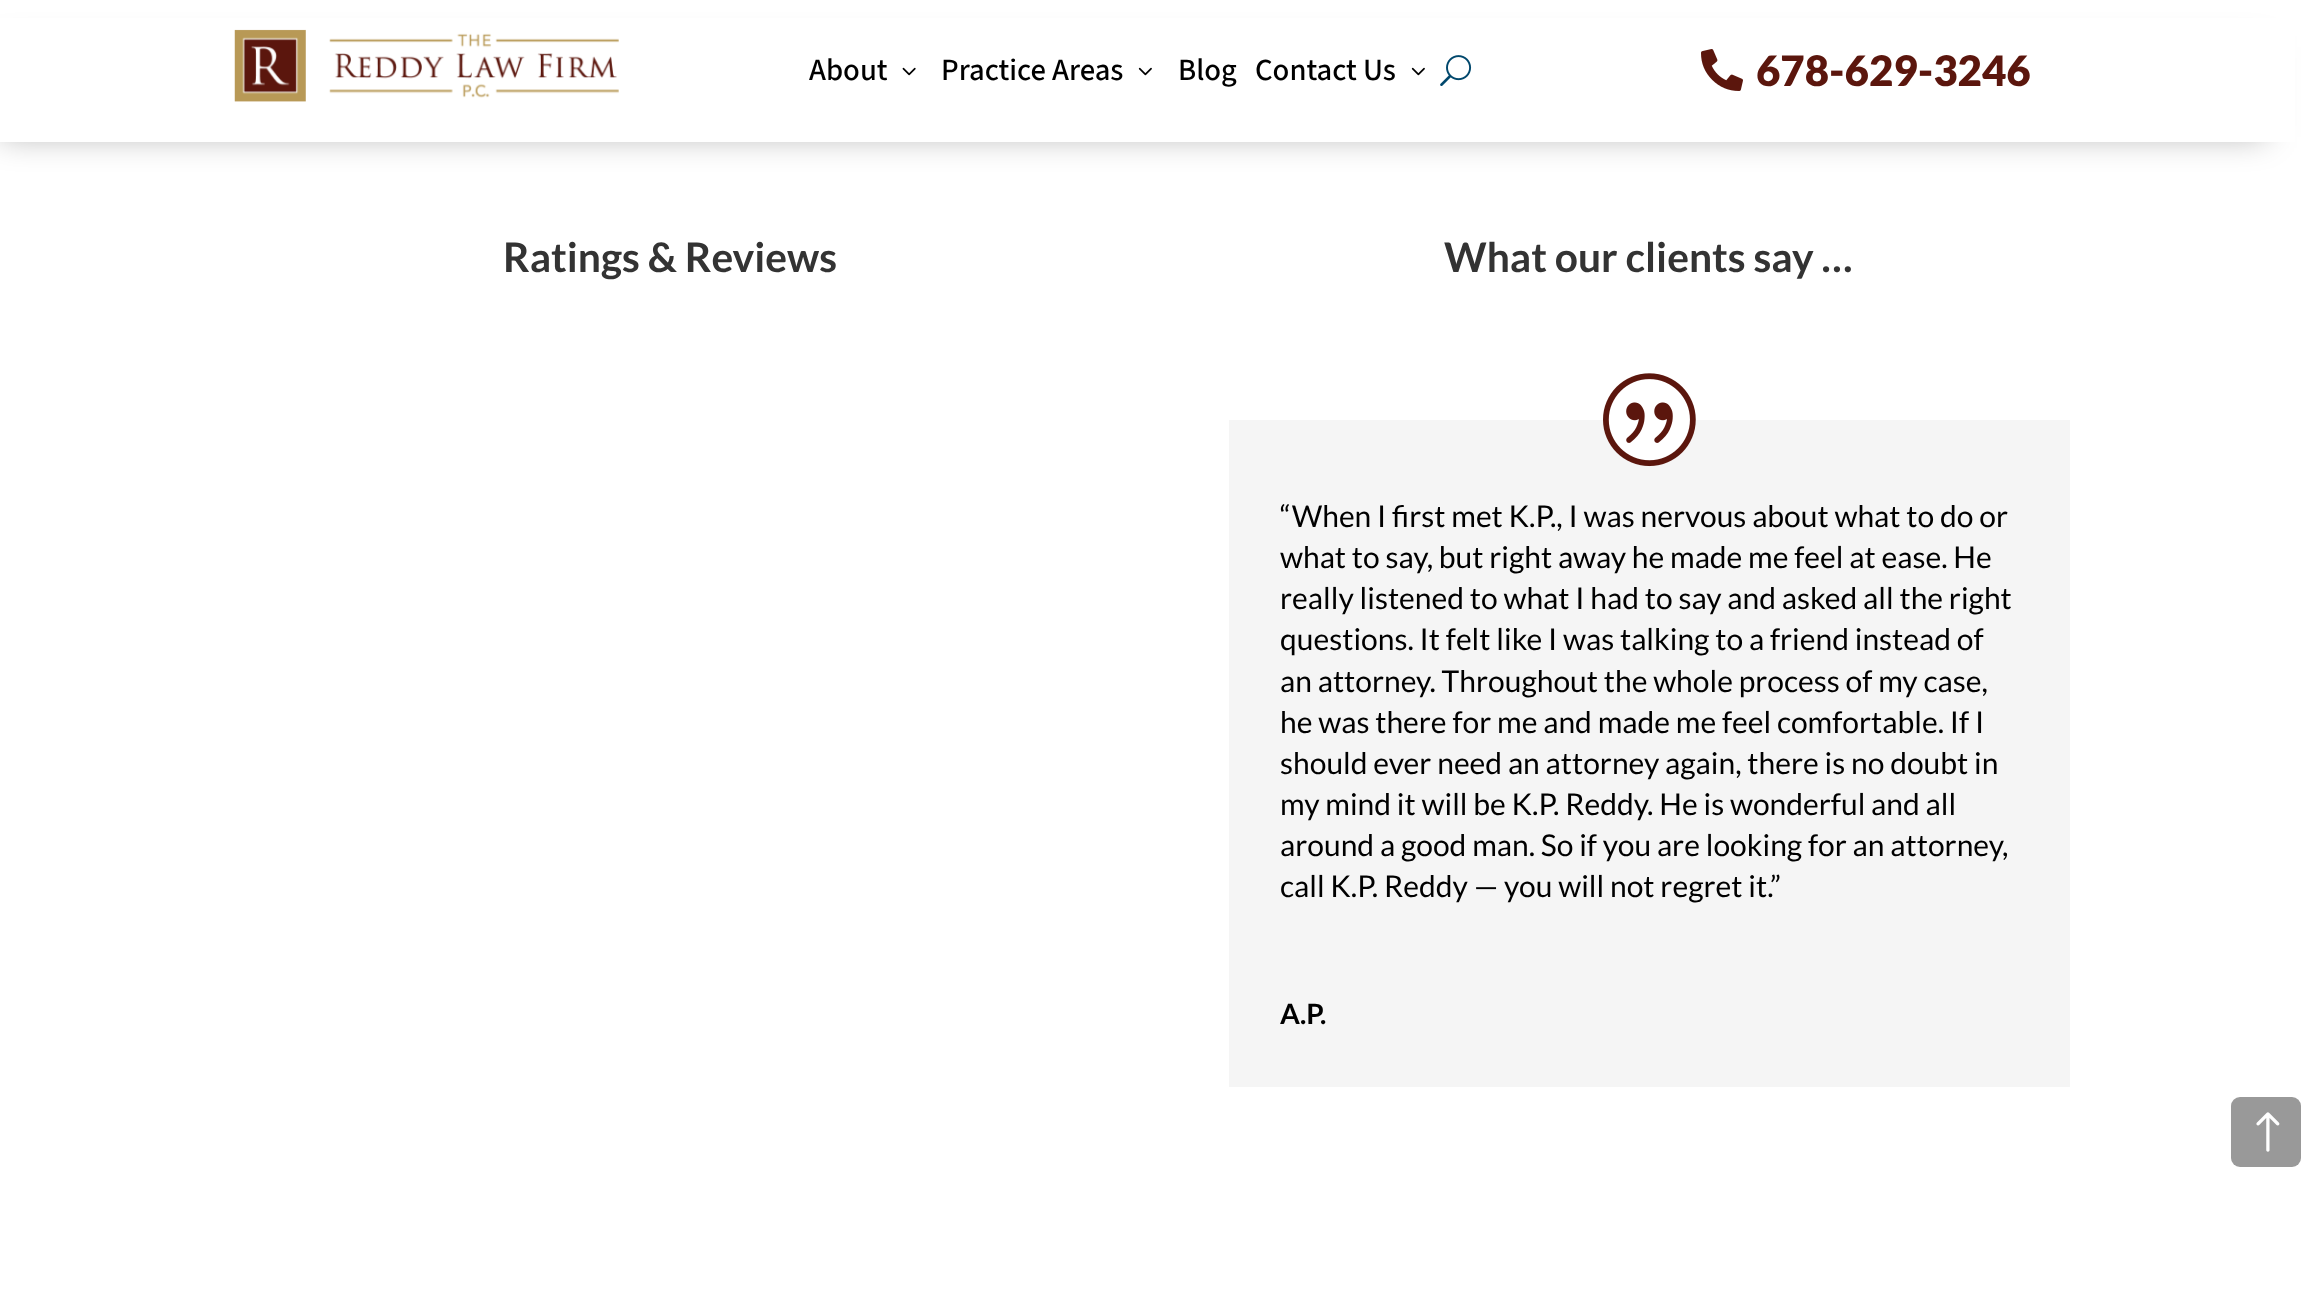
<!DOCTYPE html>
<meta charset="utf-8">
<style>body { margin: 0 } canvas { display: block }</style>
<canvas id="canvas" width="2318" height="1298"></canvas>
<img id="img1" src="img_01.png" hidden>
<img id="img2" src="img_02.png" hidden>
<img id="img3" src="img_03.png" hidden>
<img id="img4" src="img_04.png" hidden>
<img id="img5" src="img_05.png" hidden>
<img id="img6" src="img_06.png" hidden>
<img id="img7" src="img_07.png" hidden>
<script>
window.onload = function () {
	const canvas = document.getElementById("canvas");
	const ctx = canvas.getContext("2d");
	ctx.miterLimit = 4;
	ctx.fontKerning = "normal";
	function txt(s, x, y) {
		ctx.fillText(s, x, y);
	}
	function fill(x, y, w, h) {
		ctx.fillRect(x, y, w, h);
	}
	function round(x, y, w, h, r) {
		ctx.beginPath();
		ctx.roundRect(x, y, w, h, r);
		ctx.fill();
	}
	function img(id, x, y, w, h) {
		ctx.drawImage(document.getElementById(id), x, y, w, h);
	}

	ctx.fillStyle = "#FFFFFF";
	fill(0, 0, 2318, 1298);
	ctx.fillStyle = "rgba(0, 0, 0, 0.3)";
	ctx.filter = "blur(16px)";
	ctx.beginPath();
	ctx.rect(0, 47, 2266, 90);
	ctx.fill();
	ctx.filter = "none";
	ctx.fillStyle = "#FFFFFF";
	fill(0, 18, 2295, 124);
	img("img1", 234, 29, 385, 73);
	img("img2", 902, 67, 14, 9);
	img("img3", 1138, 67, 14, 9);
	img("img3", 1411, 67, 14, 9);
	img("img4", 1440, 55, 32, 31);
	img("img5", 1701, 49, 42, 42);
	ctx.fillStyle = "#F5F5F5";
	fill(1229, 420, 841, 667);
	ctx.fillStyle = "#FFFFFF";
	ctx.beginPath();
	ctx.arc(1649.5, 419.5, 46.5, 0, Math.PI * 2);
	ctx.fill();
	img("img6", 1603, 373, 93, 94);
	ctx.fillStyle = "#999999";
	round(2231, 1097, 70, 70, 9);
	img("img7", 2256, 1112, 24, 40);
	ctx.font = "500 30.75px 'Source Sans 3'";
	ctx.fillStyle = "#000000";
	txt("About", 809, 80);
	txt("Practice Areas", 941, 80);
	txt("Blog", 1178, 80);
	txt("Contact Us", 1255, 80);
	ctx.font = "900 42px Lato";
	ctx.fillStyle = "#5B160D";
	txt("678-629-3246", 1756, 86);
	ctx.font = "bold 40.75px Lato";
	ctx.fillStyle = "#333333";
	txt("Ratings & Reviews", 503, 272);
	txt("What our clients say …", 1444, 272);
	ctx.font = "30px Lato";
	ctx.fillStyle = "#000000";
	txt("“When I first met K.P., I was nervous about what to do or", 1280, 527);
	txt("what to say, but right away he made me feel at ease. He", 1280, 568);
	txt("really listened to what I had to say and asked all the right", 1280, 609);
	txt("questions. It felt like I was talking to a friend instead of", 1280, 650);
	txt("an attorney. Throughout the whole process of my case,", 1280, 692);
	txt("he was there for me and made me feel comfortable. If I", 1280, 733);
	txt("should ever need an attorney again, there is no doubt in", 1280, 774);
	txt("my mind it will be K.P. Reddy. He is wonderful and all", 1280, 815);
	txt("around a good man. So if you are looking for an attorney,", 1280, 856);
	txt("call K.P. Reddy — you will not regret it.”", 1280, 897);
	ctx.font = "bold 28px Lato";
	txt("A.P.", 1280, 1024);
};
</script>
